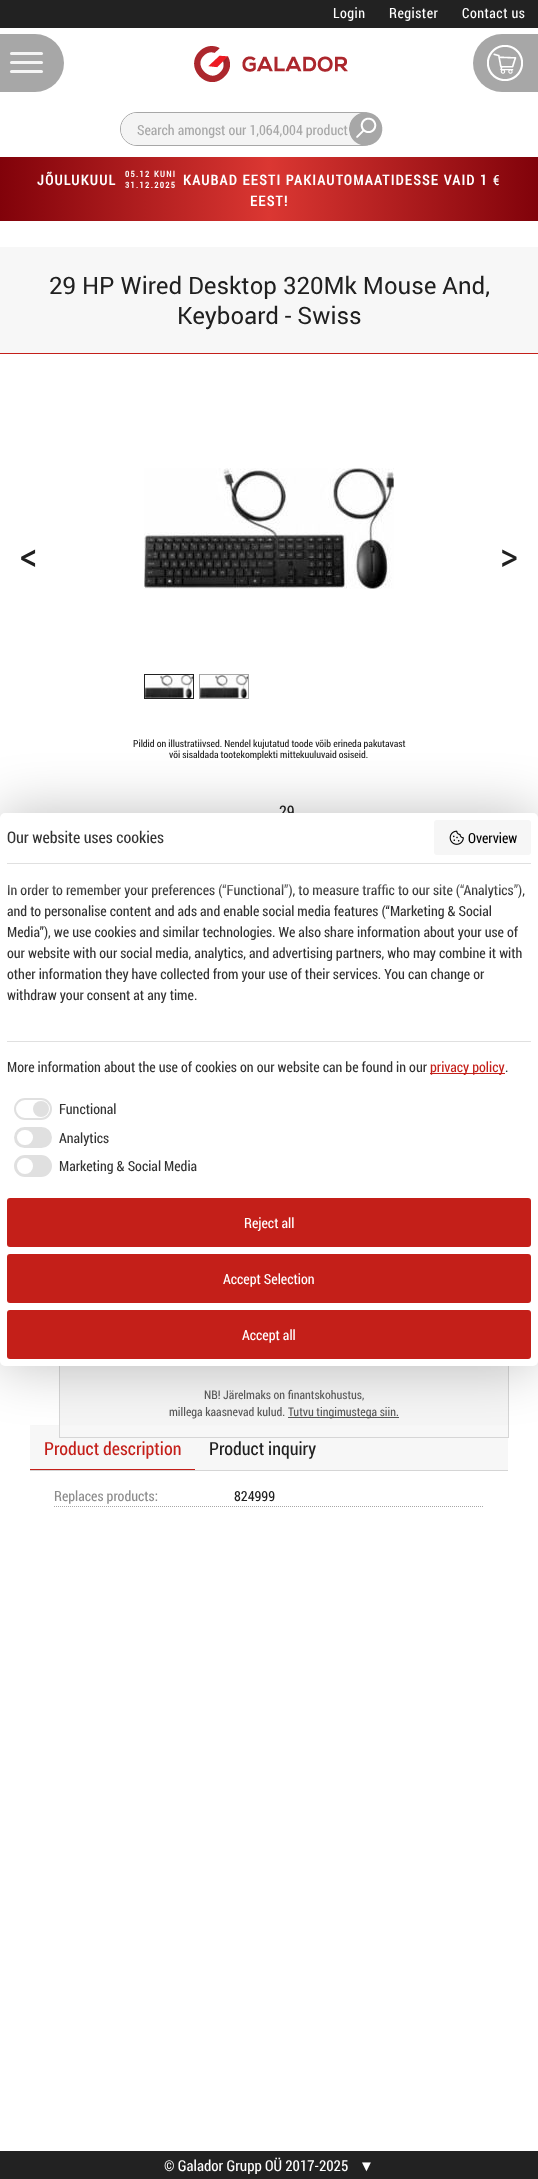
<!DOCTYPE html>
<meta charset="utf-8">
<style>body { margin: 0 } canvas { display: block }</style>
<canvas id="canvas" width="538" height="2179"></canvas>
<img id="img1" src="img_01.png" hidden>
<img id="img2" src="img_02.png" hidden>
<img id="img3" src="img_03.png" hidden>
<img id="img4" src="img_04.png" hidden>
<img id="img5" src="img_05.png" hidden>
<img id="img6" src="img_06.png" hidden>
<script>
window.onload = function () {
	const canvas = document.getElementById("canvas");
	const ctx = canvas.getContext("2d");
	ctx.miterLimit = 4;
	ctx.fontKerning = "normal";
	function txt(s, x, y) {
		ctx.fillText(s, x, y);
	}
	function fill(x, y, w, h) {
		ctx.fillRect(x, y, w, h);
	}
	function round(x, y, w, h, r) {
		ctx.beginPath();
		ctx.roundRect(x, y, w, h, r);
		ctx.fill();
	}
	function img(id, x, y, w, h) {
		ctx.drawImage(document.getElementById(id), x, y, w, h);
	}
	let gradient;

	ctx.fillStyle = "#FFFFFF";
	fill(0, 0, 538, 2179);
	ctx.fillStyle = "#222222";
	fill(0, 0, 538, 28);
	ctx.fillStyle = "#A7A7A7";
	ctx.beginPath();
	ctx.roundRect(0, 34, 64, 58, [0, 29, 29, 0]);
	ctx.fill();
	ctx.fillStyle = "#F5F5F5";
	round(10, 52, 33, 3, 1.5);
	round(10, 61, 33, 3, 1.5);
	round(10, 70, 33, 3, 1.5);
	img("img1", 194, 46, 154, 36);
	ctx.fillStyle = "#A7A7A7";
	ctx.beginPath();
	ctx.roundRect(473, 34, 65, 58, [29, 0, 0, 29]);
	ctx.fill();
	img("img2", 487, 45, 36, 36);
	ctx.beginPath();
	ctx.roundRect(120.5, 112.5, 259, 33, 16.5);
	ctx.strokeStyle = "#A7A7A7";
	ctx.stroke();
	ctx.fillStyle = "#F4F4F4";
	round(121, 113, 258, 32, 16);
	img("img3", 349, 112, 34, 34);
	gradient = ctx.createLinearGradient(0, 189, 538, 189);
	gradient.addColorStop(0, "#81020A");
	gradient.addColorStop(0.5, "#DB3732");
	gradient.addColorStop(1, "#81020A");
	ctx.fillStyle = gradient;
	fill(0, 157, 538, 64);
	ctx.fillStyle = "#F7F7F7";
	fill(0, 247, 538, 106);
	ctx.fillStyle = "#C41F19";
	fill(0, 353, 538, 1);
	img("img4", 144, 468, 250, 121);
	ctx.strokeStyle = "#222222";
	ctx.strokeRect(144.5, 674.5, 49, 24);
	img("img5", 145, 675, 48, 23);
	ctx.strokeStyle = "#A7A7A7";
	ctx.strokeRect(199.5, 674.5, 49, 24);
	img("img5", 200, 675, 48, 23);
	ctx.fillStyle = "#F5F5F5";
	fill(60, 1366, 448, 59);
	ctx.fillStyle = "#F7F7F7";
	fill(30, 1425, 478, 45);
	ctx.strokeStyle = "#D6D6D6";
	ctx.strokeRect(59.5, 1200.5, 449, 237);
	ctx.fillStyle = "#585858";
	fill(288, 1417, 111, 1);
	ctx.fillStyle = "#D5D5D5";
	fill(30, 1470, 478, 1);
	ctx.fillStyle = "#C41F19";
	fill(30, 1469, 165, 1);
	ctx.beginPath();
	ctx.moveTo(54, 1506.5);
	ctx.lineTo(484, 1506.5);
	ctx.strokeStyle = "#A7A7A7";
	ctx.setLineDash([1, 1]);
	ctx.stroke();
	ctx.fillStyle = "rgba(0, 0, 0, 0.25)";
	ctx.filter = "blur(28px)";
	ctx.beginPath();
	ctx.roundRect(0, 813, 538, 553, 5);
	ctx.fill();
	ctx.filter = "none";
	ctx.fillStyle = "#222222";
	fill(0, 2151, 538, 28);
	ctx.letterSpacing = "0.5px";
	ctx.font = "14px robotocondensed";
	ctx.fillStyle = "#FFFFFF";
	txt("Login", 333, 18);
	txt("Register", 389, 18);
	txt("Contact us", 462, 18);
	ctx.letterSpacing = "0px";
	ctx.fillStyle = "#A7A7A7";
	txt("Search amongst our 1,064,004 product", 137, 135);
	ctx.letterSpacing = "1.4px";
	ctx.font = "bold 14px robotocondensed";
	ctx.fillStyle = "#FFFFFF";
	txt("JÕULUKUUL", 37, 185);
	ctx.font = "bold 8.5px robotocondensed";
	txt("05.12 KUNI", 125, 177);
	txt("31.12.2025", 125, 188);
	ctx.font = "bold 14px robotocondensed";
	txt("KAUBAD EESTI PAKIAUTOMAATIDESSE VAID 1", 183, 185);
	ctx.font = "14px robotocondensed";
	txt("€", 493, 185);
	ctx.font = "bold 14px robotocondensed";
	txt("EEST!", 250, 206);
	ctx.letterSpacing = "0px";
	ctx.font = "24px roboto";
	ctx.fillStyle = "#202020";
	txt("29 HP Wired Desktop 320Mk Mouse And,", 49, 294);
	txt("Keyboard - Swiss", 177, 324);
	ctx.font = "40px robotocondensed";
	txt("<", 20, 569);
	txt(">", 500, 569);
	ctx.font = "9.8px robotocondensed";
	txt("Pildid on illustratiivsed. Nendel kujutatud toode võib erineda pakutavast", 133, 747);
	txt("või sisaldada tootekomplekti mittekuuluvaid osiseid.", 169, 758);
	ctx.font = "16px robotocondensed";
	txt("29", 279, 817);
	ctx.font = "11.9px robotocondensed";
	ctx.fillStyle = "#585858";
	txt("NB! Järelmaks on finantskohustus,", 204, 1399);
	txt("millega kaasnevad kulud.", 169, 1416);
	txt("Tutvu tingimustega siin.", 288, 1416);
	ctx.font = "18px robotocondensed";
	ctx.fillStyle = "#C41F19";
	txt("Product description", 44, 1455);
	ctx.fillStyle = "#202020";
	txt("Product inquiry", 209, 1455);
	ctx.font = "14px robotocondensed";
	ctx.fillStyle = "#8C8C8C";
	txt("Replaces products:", 54, 1501);
	ctx.fillStyle = "#202020";
	txt("824999", 234, 1501);
	ctx.fillStyle = "#FFFFFF";
	round(0, 813, 538, 553, 5);
	ctx.font = "16px robotocondensed";
	ctx.fillStyle = "#333333";
	txt("Our website uses cookies", 7, 843);
	ctx.fillStyle = "#F6F6F6";
	round(434, 820, 97, 35, 3);
	img("img6", 449, 830, 15, 15);
	ctx.font = "14px robotocondensed";
	ctx.fillStyle = "#000000";
	txt("Overview", 468, 843);
	ctx.fillStyle = "#E0E0E0";
	fill(7, 863, 524, 1);
	fill(7, 1041, 524, 1);
	ctx.fillStyle = "#333333";
	txt("In order to remember your preferences (“Functional”), to measure traffic to our site (“Analytics”),", 7, 895);
	txt("and to personalise content and ads and enable social media features (“Marketing & Social", 7, 916);
	txt("Media”), we use cookies and similar technologies. We also share information about your use of", 7, 937);
	txt("our website with our social media, analytics, and advertising partners, who may combine it with", 7, 958);
	txt("other information they have collected from your use of their services. You can change or", 7, 979);
	txt("withdraw your consent at any time.", 7, 1000);
	gradient = ctx.createLinearGradient(269, 893, 269, 863);
	gradient.addColorStop(0, "rgba(255, 255, 255, 0)");
	gradient.addColorStop(1, "#FFFFFF");
	ctx.fillStyle = gradient;
	fill(8, 884, 514, 8);
	ctx.fillStyle = "#333333";
	txt("More information about the use of cookies on our website can be found in our", 7, 1072);
	ctx.fillStyle = "#C41F19";
	fill(430, 1073, 75, 1);
	txt("privacy policy", 430, 1072);
	ctx.fillStyle = "#333333";
	txt(".", 505, 1072);
	ctx.beginPath();
	ctx.roundRect(15, 1099, 36, 20, 10);
	ctx.strokeStyle = "#E0E0E0";
	ctx.lineWidth = 2;
	ctx.setLineDash([]);
	ctx.stroke();
	ctx.fillStyle = "#E0E0E0";
	ctx.beginPath();
	ctx.arc(41, 1109, 8, 0, Math.PI * 2);
	ctx.fill();
	ctx.fillStyle = "#333333";
	txt("Functional", 59, 1114);
	ctx.fillStyle = "#E0E0E0";
	ctx.beginPath();
	ctx.roundRect(15, 1128, 36, 19, 9.5);
	ctx.fill();
	ctx.stroke();
	ctx.fillStyle = "#FFFFFF";
	round(17, 1130, 16, 15, 7.5);
	ctx.fillStyle = "#333333";
	txt("Analytics", 59, 1143);
	ctx.fillStyle = "#E0E0E0";
	ctx.beginPath();
	ctx.roundRect(15, 1156, 36, 20, 10);
	ctx.fill();
	ctx.stroke();
	ctx.fillStyle = "#FFFFFF";
	ctx.beginPath();
	ctx.arc(25, 1166, 8, 0, Math.PI * 2);
	ctx.fill();
	ctx.fillStyle = "#333333";
	txt("Marketing & Social Media", 59, 1171);
	ctx.fillStyle = "#C41F19";
	round(7, 1198, 524, 49, 3);
	ctx.fillStyle = "#FFFFFF";
	txt("Reject all", 244, 1228);
	ctx.fillStyle = "#C41F19";
	round(7, 1254, 524, 49, 3);
	ctx.fillStyle = "#FFFFFF";
	txt("Accept Selection", 223, 1284);
	ctx.fillStyle = "#C41F19";
	round(7, 1310, 524, 49, 3);
	ctx.fillStyle = "#FFFFFF";
	txt("Accept all", 242, 1340);
	ctx.font = "15px robotocondensed";
	txt("© Galador Grupp OÜ 2017-2025", 164, 2171);
	ctx.font = "15px Liberation Serif";
	txt("▼", 359, 2171);
};
</script>
